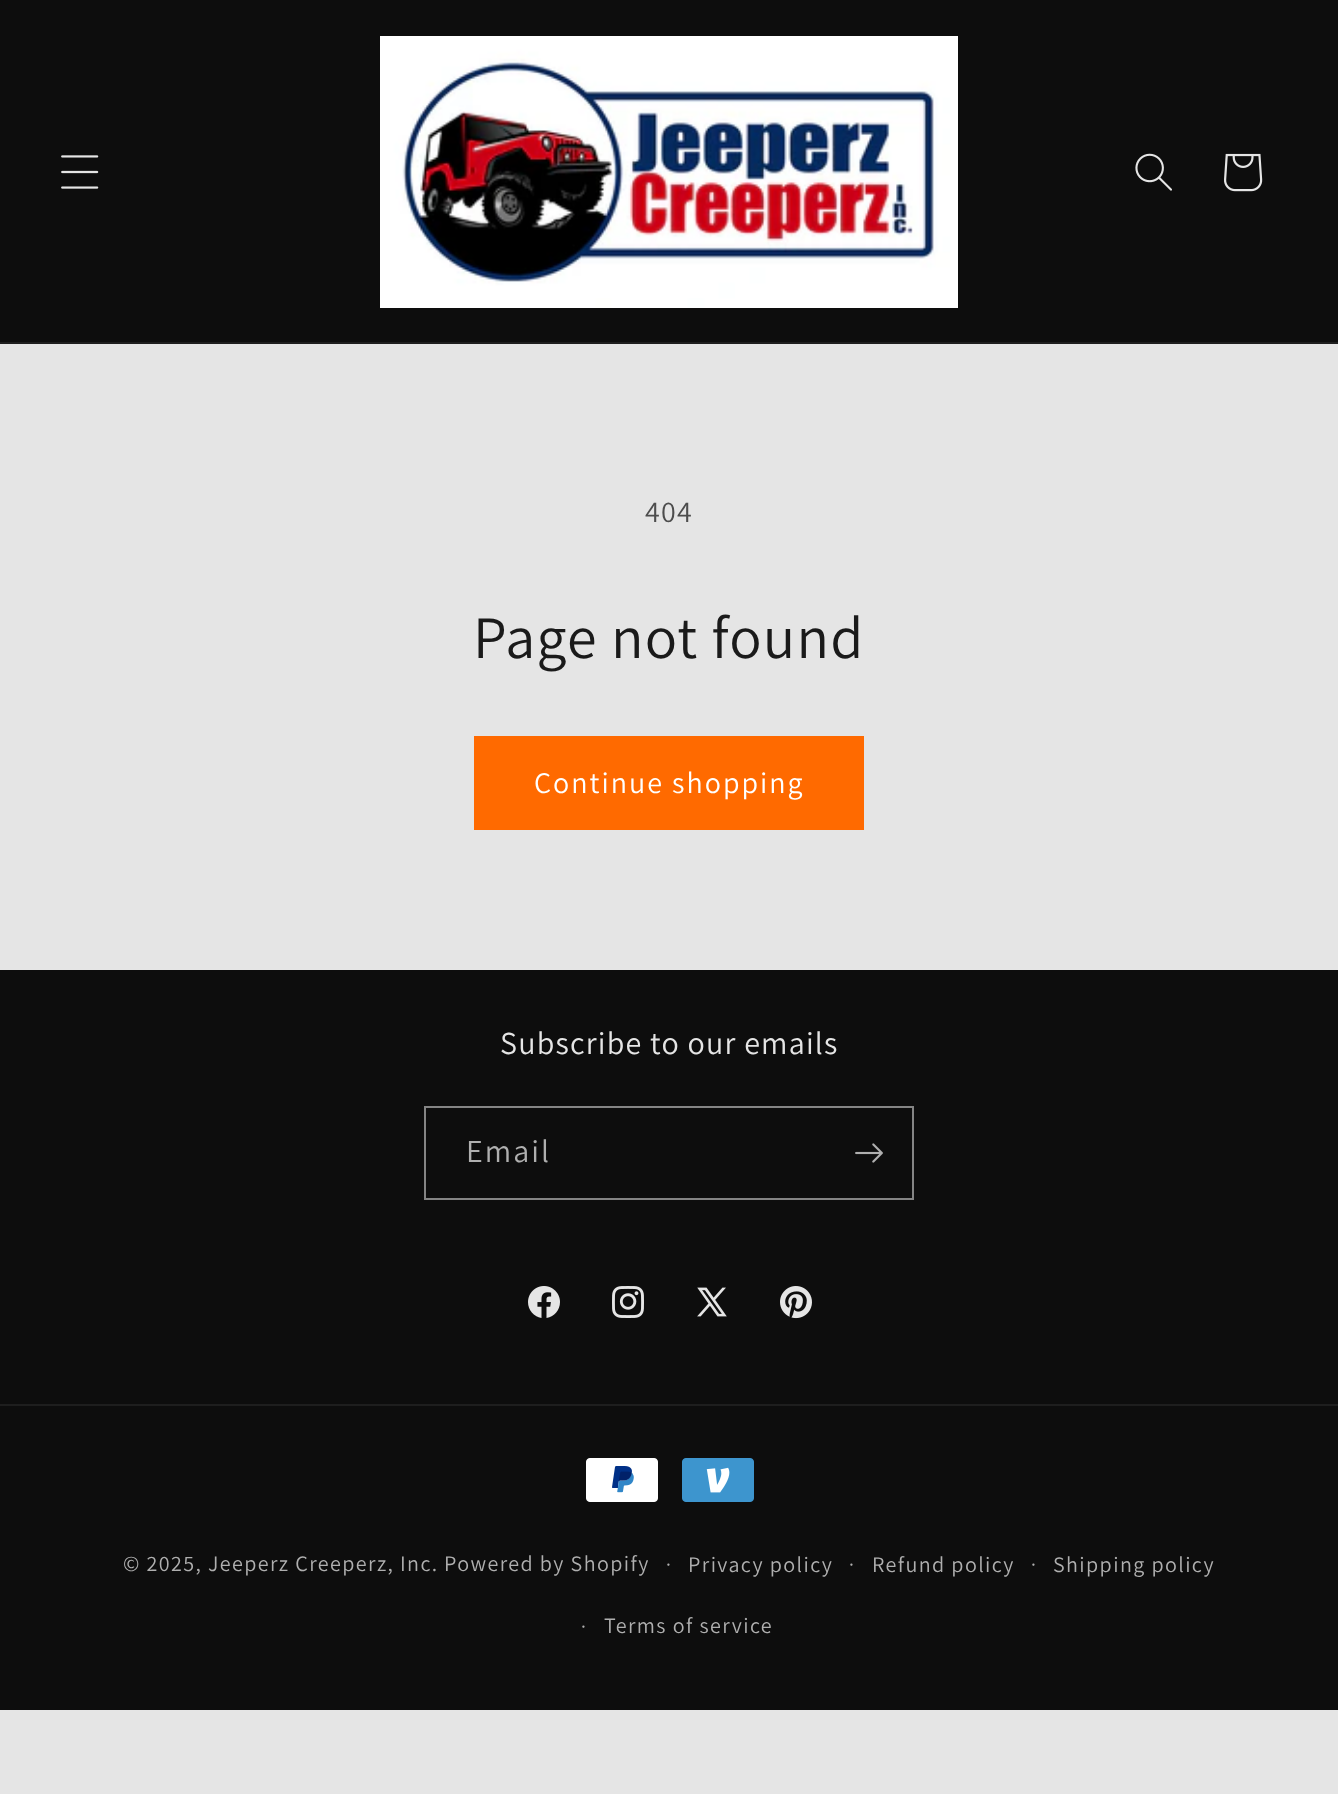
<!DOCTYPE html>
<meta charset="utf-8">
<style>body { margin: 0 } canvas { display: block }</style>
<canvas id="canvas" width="1338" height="1794"></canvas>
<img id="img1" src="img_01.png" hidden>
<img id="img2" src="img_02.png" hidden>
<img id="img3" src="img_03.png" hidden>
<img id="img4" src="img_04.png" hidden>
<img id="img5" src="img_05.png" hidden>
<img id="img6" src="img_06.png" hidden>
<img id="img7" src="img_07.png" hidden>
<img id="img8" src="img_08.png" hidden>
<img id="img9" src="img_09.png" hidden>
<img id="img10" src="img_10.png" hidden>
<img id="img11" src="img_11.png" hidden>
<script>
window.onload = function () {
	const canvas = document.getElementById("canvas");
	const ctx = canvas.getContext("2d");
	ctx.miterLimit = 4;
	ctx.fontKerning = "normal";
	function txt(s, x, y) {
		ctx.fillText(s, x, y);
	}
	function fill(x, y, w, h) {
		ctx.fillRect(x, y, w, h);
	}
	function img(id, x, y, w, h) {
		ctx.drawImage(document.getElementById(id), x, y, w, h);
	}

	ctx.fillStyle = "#E5E5E5";
	fill(0, 0, 1338, 1794);
	ctx.fillStyle = "#0D0D0D";
	fill(0, 0, 1338, 342);
	ctx.fillStyle = "#1E1E1E";
	fill(0, 342, 1338, 2);
	img("img1", 61, 155, 38, 34);
	img("img2", 380, 36, 578, 272);
	img("img3", 1135, 153, 37, 38);
	img("img4", 1224, 153, 39, 39);
	ctx.fillStyle = "#FF6A00";
	fill(474, 736, 390, 94);
	ctx.fillStyle = "#0D0D0D";
	fill(0, 970, 1338, 740);
	ctx.strokeStyle = "#848484";
	ctx.lineWidth = 2;
	ctx.strokeRect(425, 1107, 488, 92);
	img("img5", 855, 1143, 28, 20);
	img("img6", 528, 1286, 32, 32);
	img("img7", 612, 1286, 32, 32);
	img("img8", 697, 1287, 30, 30);
	img("img9", 780, 1286, 32, 33);
	ctx.fillStyle = "#1E1E1E";
	fill(0, 1404, 1338, 2);
	img("img10", 586, 1458, 72, 44);
	img("img11", 682, 1458, 72, 44);
	ctx.letterSpacing = "1.2px";
	ctx.font = "30px Assistant";
	ctx.fillStyle = "#4D4D4D";
	txt("404", 645, 522);
	ctx.font = "60px Assistant";
	ctx.fillStyle = "#1A1A1A";
	txt("Page not found", 473, 658);
	ctx.letterSpacing = "2px";
	ctx.font = "30px Assistant";
	ctx.fillStyle = "#FFFFFF";
	txt("Continue shopping", 534, 793);
	ctx.letterSpacing = "1.2px";
	ctx.font = "32px Assistant";
	ctx.fillStyle = "#E5E5E5";
	txt("Subscribe to our emails", 500, 1054);
	ctx.letterSpacing = "2px";
	ctx.fillStyle = "#AFAFAF";
	txt("Email", 466, 1162);
	ctx.letterSpacing = "1.4px";
	ctx.font = "22px Assistant";
	txt("© 2025, Jeeperz Creeperz, Inc.", 123, 1571);
	txt("Powered by Shopify", 444, 1571);
	ctx.font = "20px Assistant";
	txt("·", 666, 1571);
	ctx.font = "22px Assistant";
	txt("Privacy policy", 688, 1572);
	ctx.font = "20px Assistant";
	txt("·", 849, 1571);
	ctx.font = "22px Assistant";
	txt("Refund policy", 872, 1572);
	ctx.font = "20px Assistant";
	txt("·", 1031, 1571);
	ctx.font = "22px Assistant";
	txt("Shipping policy", 1053, 1572);
	ctx.font = "20px Assistant";
	txt("·", 581, 1633);
	ctx.font = "22px Assistant";
	txt("Terms of service", 604, 1633);
};
</script>
